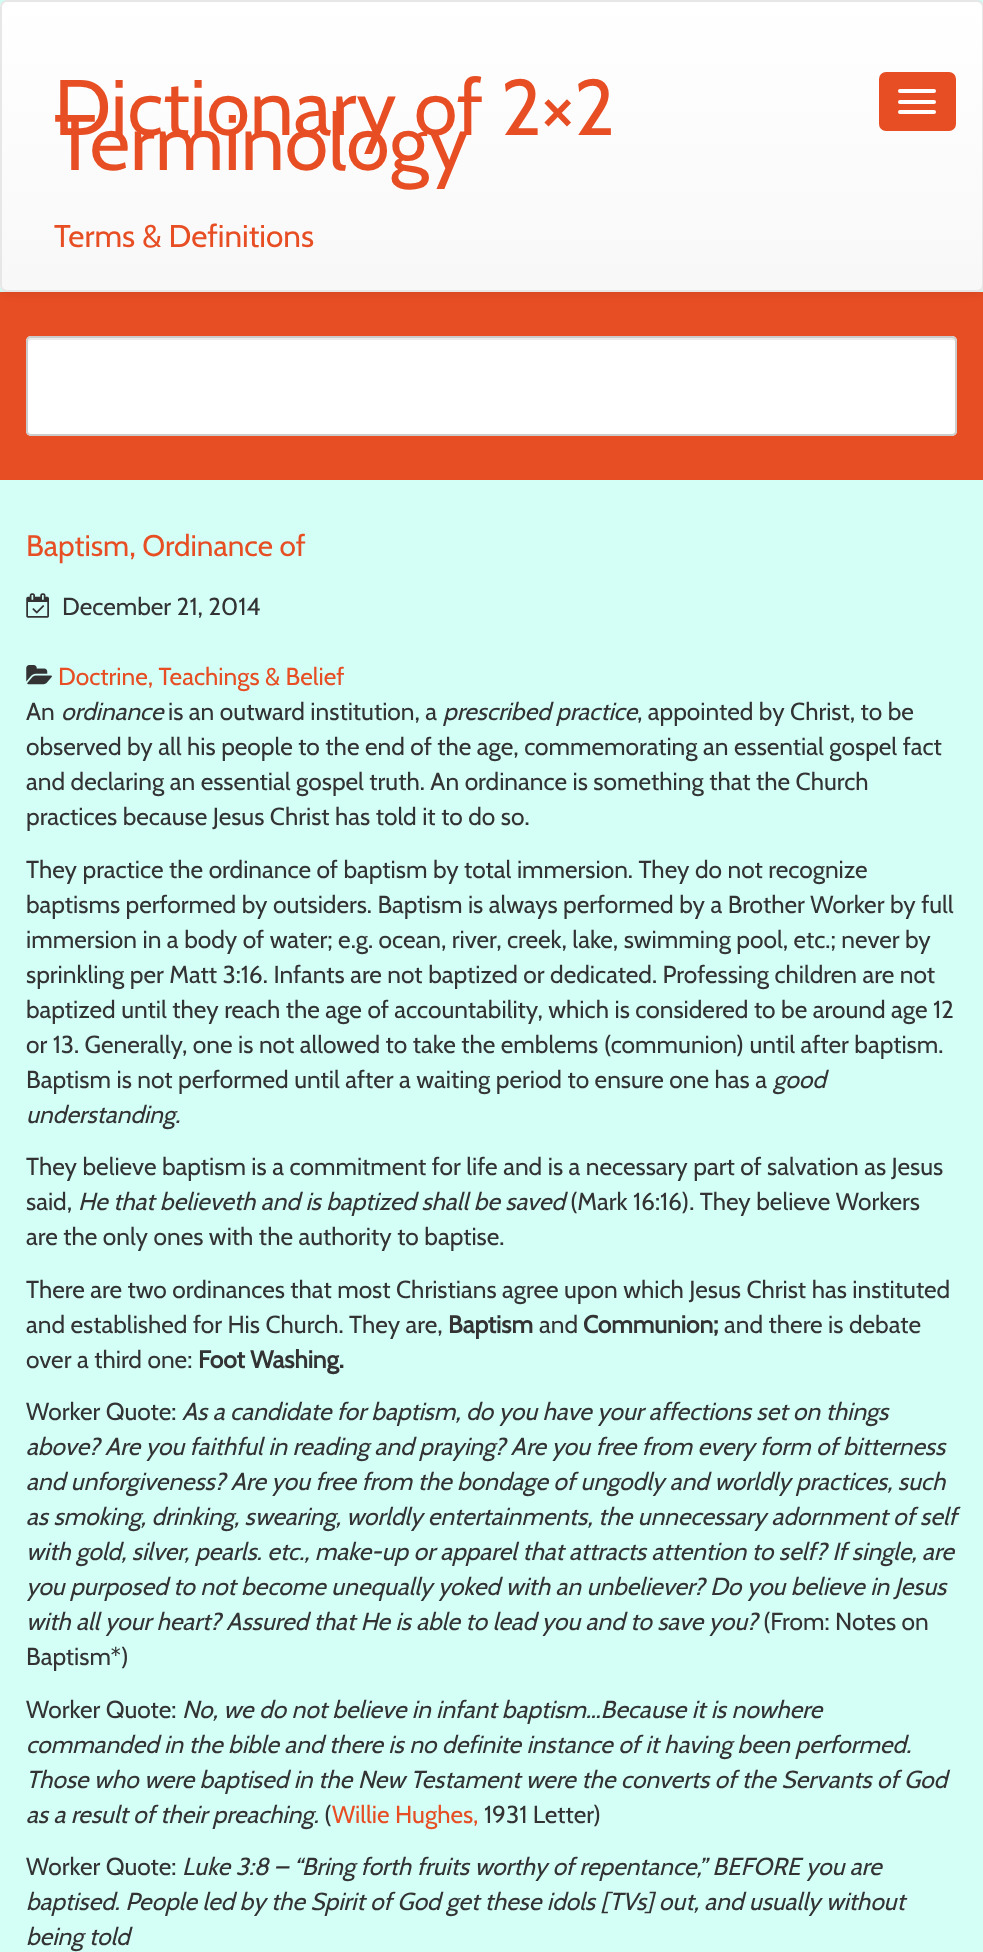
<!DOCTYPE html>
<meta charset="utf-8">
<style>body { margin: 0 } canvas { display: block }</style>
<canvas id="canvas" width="983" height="1952"></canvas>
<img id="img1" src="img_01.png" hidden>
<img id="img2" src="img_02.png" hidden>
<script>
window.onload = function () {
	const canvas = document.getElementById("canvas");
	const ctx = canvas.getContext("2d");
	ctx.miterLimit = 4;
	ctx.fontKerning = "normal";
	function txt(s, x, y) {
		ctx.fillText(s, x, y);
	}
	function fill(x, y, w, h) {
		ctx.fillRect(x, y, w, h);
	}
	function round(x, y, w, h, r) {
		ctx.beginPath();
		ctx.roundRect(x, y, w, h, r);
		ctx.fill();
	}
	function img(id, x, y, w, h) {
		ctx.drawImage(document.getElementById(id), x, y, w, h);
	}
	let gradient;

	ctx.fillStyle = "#D3FFF7";
	fill(0, 0, 983, 1952);
	ctx.fillStyle = "#E74E24";
	fill(0, 292, 983, 188);
	ctx.fillStyle = "rgba(0, 0, 0, 0.07)";
	ctx.filter = "blur(4.5px)";
	ctx.beginPath();
	ctx.roundRect(0, 2, 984, 292, 7);
	ctx.fill();
	ctx.filter = "none";
	ctx.save();
	ctx.beginPath();
	ctx.roundRect(0, 0, 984, 292, 7);
	ctx.clip();
	gradient = ctx.createLinearGradient(492, 1.7, 492, 291);
	gradient.addColorStop(0, "#FFFFFF");
	gradient.addColorStop(1, "#F8F8F8");
	ctx.fillStyle = gradient;
	fill(0, 2, 983, 289);
	ctx.restore();
	ctx.beginPath();
	ctx.roundRect(1, 1, 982, 290, 6);
	ctx.strokeStyle = "#E7E7E7";
	ctx.lineWidth = 2;
	ctx.stroke();
	ctx.fillStyle = "#E74E24";
	ctx.beginPath();
	ctx.roundRect(880, 73, 75, 57, 6);
	ctx.fill();
	ctx.strokeStyle = "#E74E24";
	ctx.stroke();
	ctx.fillStyle = "#FFFFFF";
	round(898, 89, 38, 4, 2);
	round(898, 100, 38, 4, 2);
	round(898, 110, 38, 4, 2);
	round(26, 336, 931, 100, 5);
	ctx.fillStyle = "#ECECEC";
	ctx.beginPath();
	ctx.moveTo(32, 340);
	ctx.lineTo(952, 340);
	ctx.bezierCurveTo(954, 340, 956, 341, 956, 343);
	ctx.bezierCurveTo(956, 340, 955, 338, 952, 338);
	ctx.lineTo(32, 338);
	ctx.bezierCurveTo(29, 338, 28, 340, 28, 343);
	ctx.bezierCurveTo(28, 341, 30, 340, 32, 340);
	ctx.closePath();
	ctx.fill();
	ctx.beginPath();
	ctx.roundRect(27, 337, 929, 98, 4);
	ctx.strokeStyle = "#CCCCCC";
	ctx.stroke();
	img("img1", 26, 593, 23, 25);
	img("img2", 26, 665, 26, 20);
	ctx.font = "78.75px Cabin";
	ctx.fillStyle = "#E74E24";
	txt("Dictionary of 2×2", 54, 135);
	txt("Terminology", 54, 170);
	ctx.font = "31.5px Cabin";
	txt("Terms & Definitions", 54, 247);
	ctx.font = "29.75px Cabin";
	txt("Baptism, Ordinance of", 26, 556);
	ctx.font = "24.5px Cabin";
	ctx.fillStyle = "#333333";
	txt("December 21, 2014", 62, 615);
	ctx.fillStyle = "#E74E24";
	txt("Doctrine, Teachings & Belief", 58, 685);
	ctx.fillStyle = "#333333";
	txt("An", 26, 720);
	ctx.font = "italic 24.5px Cabin";
	txt("ordinance", 61, 720);
	ctx.font = "24.5px Cabin";
	txt("is an outward institution, a", 168, 720);
	ctx.font = "italic 24.5px Cabin";
	txt("prescribed practice", 443, 720);
	ctx.font = "24.5px Cabin";
	txt(", appointed by Christ, to be", 637, 720);
	txt("observed by all his people to the end of the age, commemorating an essential gospel fact", 26, 755);
	txt("and declaring an essential gospel truth. An ordinance is something that the Church", 26, 790);
	txt("practices because Jesus Christ has told it to do so.", 26, 825);
	txt("They practice the ordinance of baptism by total immersion. They do not recognize", 26, 878);
	txt("baptisms performed by outsiders. Baptism is always performed by a Brother Worker by full", 26, 913);
	txt("immersion in a body of water; e.g. ocean, river, creek, lake, swimming pool, etc.; never by", 26, 948);
	txt("sprinkling per Matt 3:16. Infants are not baptized or dedicated. Professing children are not", 26, 983);
	txt("baptized until they reach the age of accountability, which is considered to be around age 12", 26, 1018);
	txt("or 13. Generally, one is not allowed to take the emblems (communion) until after baptism.", 26, 1053);
	txt("Baptism is not performed until after a waiting period to ensure one has a", 26, 1088);
	ctx.font = "italic 24.5px Cabin";
	txt("good", 773, 1088);
	txt("understanding.", 26, 1123);
	ctx.font = "24.5px Cabin";
	txt("They believe baptism is a commitment for life and is a necessary part of salvation as Jesus", 26, 1175);
	txt("said,", 26, 1210);
	ctx.font = "italic 24.5px Cabin";
	txt("He that believeth and is baptized shall be saved", 78, 1210);
	ctx.font = "24.5px Cabin";
	txt("(Mark 16:16). They believe Workers", 570, 1210);
	txt("are the only ones with the authority to baptise.", 26, 1245);
	txt("There are two ordinances that most Christians agree upon which Jesus Christ has instituted", 26, 1298);
	txt("and established for His Church. They are,", 26, 1333);
	ctx.font = "bold 24.5px Cabin";
	txt("Baptism", 448, 1333);
	ctx.font = "24.5px Cabin";
	txt("and", 539, 1333);
	ctx.font = "bold 24.5px Cabin";
	txt("Communion;", 583, 1333);
	ctx.font = "24.5px Cabin";
	txt("and there is debate", 724, 1333);
	txt("over a third one:", 26, 1368);
	ctx.font = "bold 24.5px Cabin";
	txt("Foot Washing.", 198, 1368);
	ctx.font = "24.5px Cabin";
	txt("Worker Quote:", 26, 1420);
	ctx.font = "italic 24.5px Cabin";
	txt("As a candidate for baptism, do you have your affections set on things", 182, 1420);
	txt("above? Are you faithful in reading and praying? Are you free from every form of bitterness", 26, 1455);
	txt("and unforgiveness? Are you free from the bondage of ungodly and worldly practices, such", 26, 1490);
	txt("as smoking, drinking, swearing, worldly entertainments, the unnecessary adornment of self", 26, 1525);
	txt("with gold, silver, pearls. etc., make-up or apparel that attracts attention to self? If single, are", 26, 1560);
	txt("you purposed to not become unequally yoked with an unbeliever? Do you believe in Jesus", 26, 1595);
	txt("with all your heart? Assured that He is able to lead you and to save you?", 26, 1630);
	ctx.font = "24.5px Cabin";
	txt("(From: Notes on", 763, 1630);
	txt("Baptism*)", 26, 1665);
	txt("Worker Quote:", 26, 1718);
	ctx.font = "italic 24.5px Cabin";
	txt("No, we do not believe in infant baptism…Because it is nowhere", 182, 1718);
	txt("commanded in the bible and there is no definite instance of it having been performed.", 26, 1753);
	txt("Those who were baptised in the New Testament were the converts of the Servants of God", 26, 1788);
	txt("as a result of their preaching.", 26, 1823);
	ctx.font = "24.5px Cabin";
	txt("(", 324, 1823);
	ctx.fillStyle = "#E74E24";
	txt("Willie Hughes,", 332, 1823);
	ctx.fillStyle = "#333333";
	txt("1931 Letter)", 484, 1823);
	txt("Worker Quote:", 26, 1875);
	ctx.font = "italic 24.5px Cabin";
	txt("Luke 3:8 – “Bring forth fruits worthy of repentance,” BEFORE you are", 182, 1875);
	txt("baptised. People led by the Spirit of God get these idols [TVs] out, and usually without", 26, 1910);
	txt("being told", 26, 1945);
};
</script>
